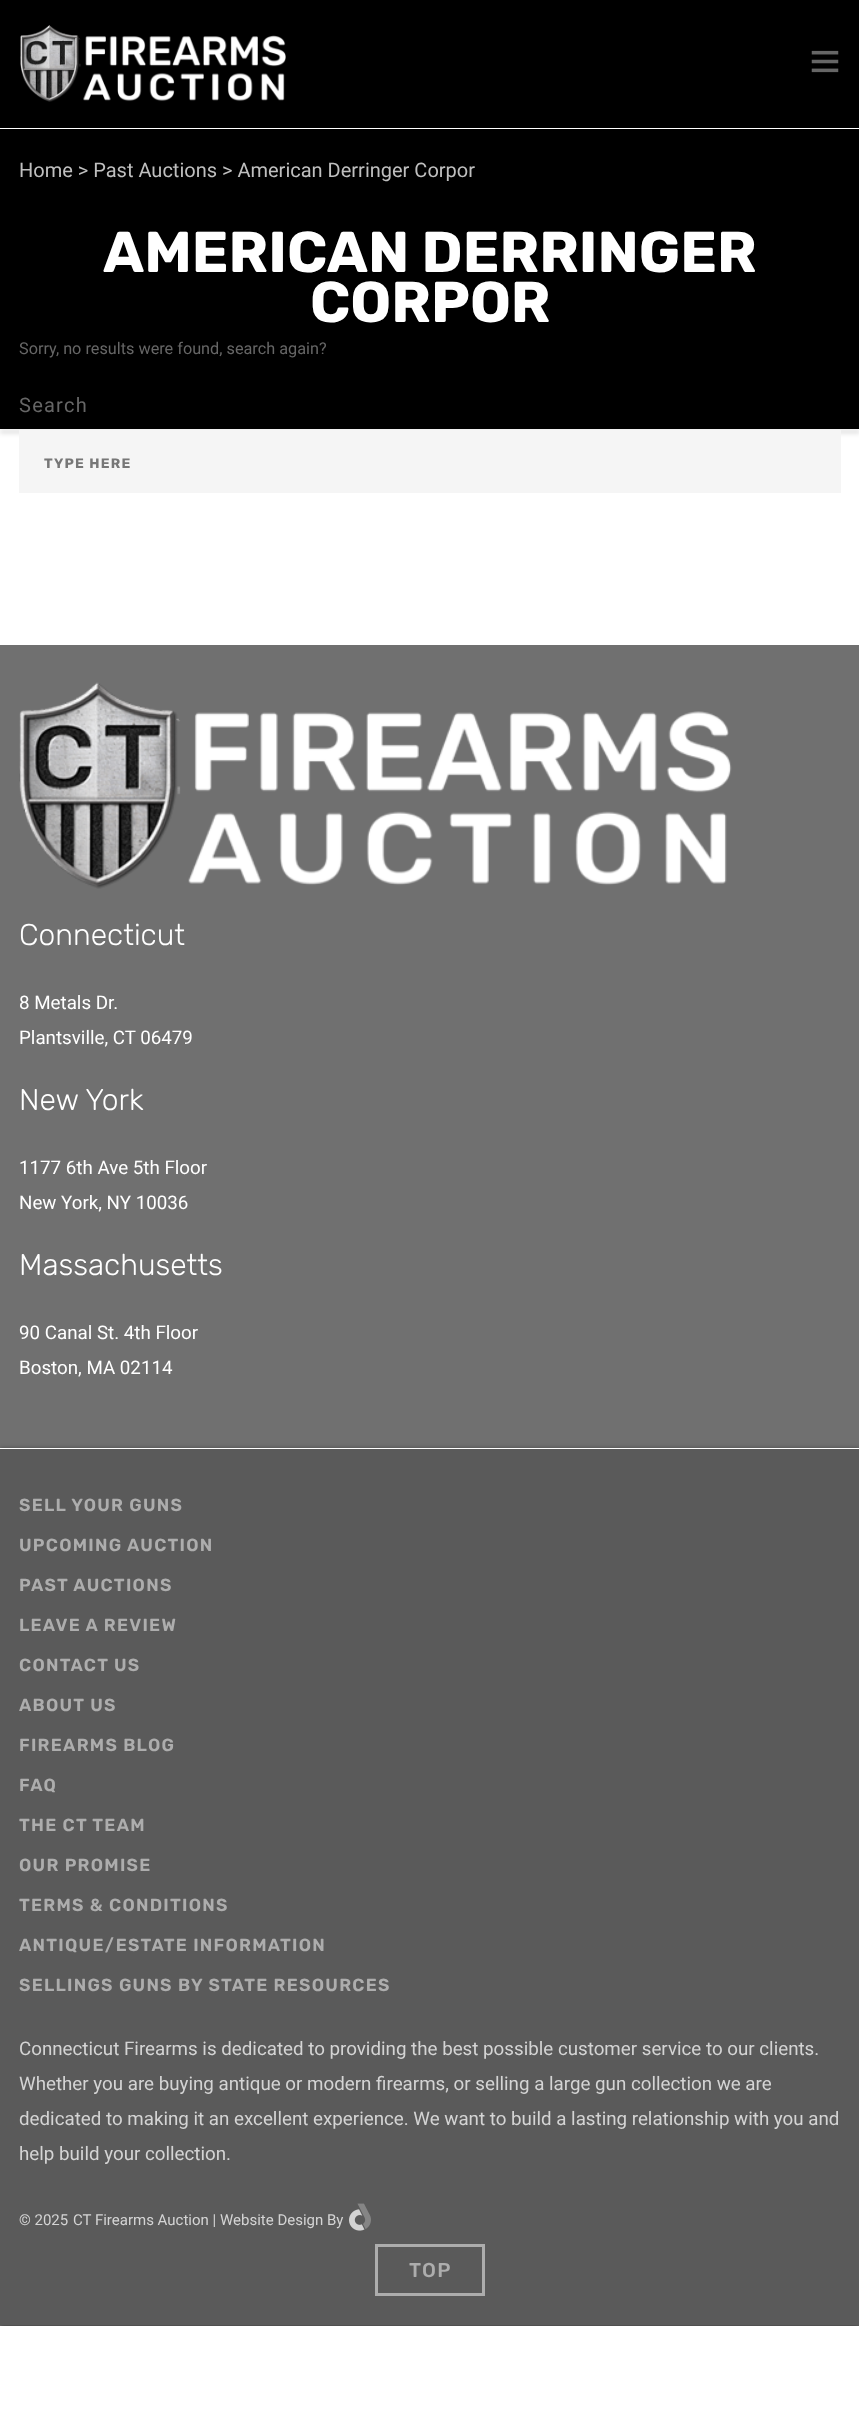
<!DOCTYPE html>
<meta charset="utf-8">
<style>body { margin: 0 } canvas { display: block }</style>
<canvas id="canvas" width="859" height="2434"></canvas>
<img id="img1" src="img_01.png" hidden>
<img id="img2" src="img_02.png" hidden>
<img id="img3" src="img_03.png" hidden>
<img id="img4" src="img_04.png" hidden>
<script>
window.onload = function () {
	const canvas = document.getElementById("canvas");
	const ctx = canvas.getContext("2d");
	ctx.miterLimit = 4;
	ctx.fontKerning = "normal";
	function txt(s, x, y) {
		ctx.fillText(s, x, y);
	}
	function fill(x, y, w, h) {
		ctx.fillRect(x, y, w, h);
	}
	function img(id, x, y, w, h) {
		ctx.drawImage(document.getElementById(id), x, y, w, h);
	}

	ctx.fillStyle = "#FFFFFF";
	fill(0, 0, 859, 2434);
	ctx.fillStyle = "#000000";
	fill(0, 0, 859, 128);
	img("img1", 20, 25, 266, 77);
	img("img2", 811, 50, 28, 23);
	fill(0, 129, 859, 300);
	ctx.fillStyle = "rgba(0, 0, 0, 0.5)";
	ctx.filter = "blur(2.5px)";
	ctx.beginPath();
	ctx.rect(0, 431, 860, 1);
	ctx.fill();
	ctx.filter = "none";
	ctx.fillStyle = "#F5F5F5";
	fill(19, 430, 822, 63);
	ctx.fillStyle = "#707070";
	fill(0, 645, 859, 1681);
	img("img3", 19, 682, 713, 207);
	ctx.save();
	ctx.beginPath();
	ctx.rect(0, 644, 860, 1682);
	ctx.clip();
	ctx.fillStyle = "rgba(0, 0, 0, 0.5)";
	ctx.filter = "blur(2.5px)";
	ctx.beginPath();
	ctx.rect(0, 1449, 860, 877);
	ctx.fill();
	ctx.filter = "none";
	ctx.restore();
	ctx.fillStyle = "#5A5A5A";
	fill(0, 1449, 859, 876);
	ctx.fillStyle = "#FFFFFF";
	fill(0, 1448, 859, 1);
	img("img4", 349, 2203, 22, 28);
	ctx.strokeStyle = "#ADADAD";
	ctx.lineWidth = 3;
	ctx.strokeRect(376.5, 2245.5, 107, 49);
	ctx.font = "20px Roboto";
	ctx.fillStyle = "#BFBFBF";
	txt("Home > Past Auctions > American Derringer Corpor", 19, 177);
	ctx.font = "bold 57.5px Rubik";
	ctx.fillStyle = "#FFFFFF";
	txt("AMERICAN DERRINGER", 103, 272);
	txt("CORPOR", 310, 322);
	ctx.font = "16.25px Roboto";
	ctx.fillStyle = "#666666";
	txt("Sorry, no results were found, search again?", 19, 354);
	ctx.letterSpacing = "1.25px";
	ctx.font = "20px Roboto";
	txt("Search", 19, 412);
	ctx.font = "bold 13.75px Rubik";
	ctx.fillStyle = "#777777";
	txt("TYPE HERE", 44, 468);
	ctx.letterSpacing = "0px";
	ctx.font = "300 30px Rubik";
	ctx.fillStyle = "#FFFFFF";
	txt("Connecticut", 19, 945);
	ctx.font = "18.75px Roboto";
	txt("8 Metals Dr.", 19, 1009);
	txt("Plantsville, CT 06479", 19, 1044);
	ctx.font = "300 30px Rubik";
	txt("New York", 19, 1110);
	ctx.font = "18.75px Roboto";
	txt("1177 6th Ave 5th Floor", 19, 1174);
	txt("New York, NY 10036", 19, 1209);
	ctx.font = "300 30px Rubik";
	txt("Massachusetts", 19, 1275);
	ctx.font = "18.75px Roboto";
	txt("90 Canal St. 4th Floor", 19, 1339);
	txt("Boston, MA 02114", 19, 1374);
	ctx.letterSpacing = "1.25px";
	ctx.font = "600 17.5px Rubik";
	ctx.fillStyle = "#ADADAD";
	txt("SELL YOUR GUNS", 19, 1511);
	txt("UPCOMING AUCTION", 19, 1551);
	txt("PAST AUCTIONS", 19, 1591);
	txt("LEAVE A REVIEW", 19, 1631);
	txt("CONTACT US", 19, 1671);
	txt("ABOUT US", 19, 1711);
	txt("FIREARMS BLOG", 19, 1751);
	txt("FAQ", 19, 1791);
	txt("THE CT TEAM", 19, 1831);
	txt("OUR PROMISE", 19, 1871);
	txt("TERMS & CONDITIONS", 19, 1911);
	txt("ANTIQUE/ESTATE INFORMATION", 19, 1951);
	txt("SELLINGS GUNS BY STATE RESOURCES", 19, 1991);
	ctx.letterSpacing = "0px";
	ctx.font = "18.75px Roboto";
	ctx.fillStyle = "#D4D4D4";
	txt("Connecticut Firearms is dedicated to providing the best possible customer service to our clients.", 19, 2055);
	txt("Whether you are buying antique or modern firearms, or selling a large gun collection we are", 19, 2090);
	txt("dedicated to making it an excellent experience. We want to build a lasting relationship with you and", 19, 2125);
	txt("help build your collection.", 19, 2160);
	ctx.font = "15px Roboto";
	txt("© 2025", 19, 2225);
	txt("CT Firearms Auction | Website Design By", 73, 2225);
	ctx.letterSpacing = "1.25px";
	ctx.font = "500 20px Rubik";
	ctx.fillStyle = "#ADADAD";
	txt("TOP", 409, 2277);
};
</script>
